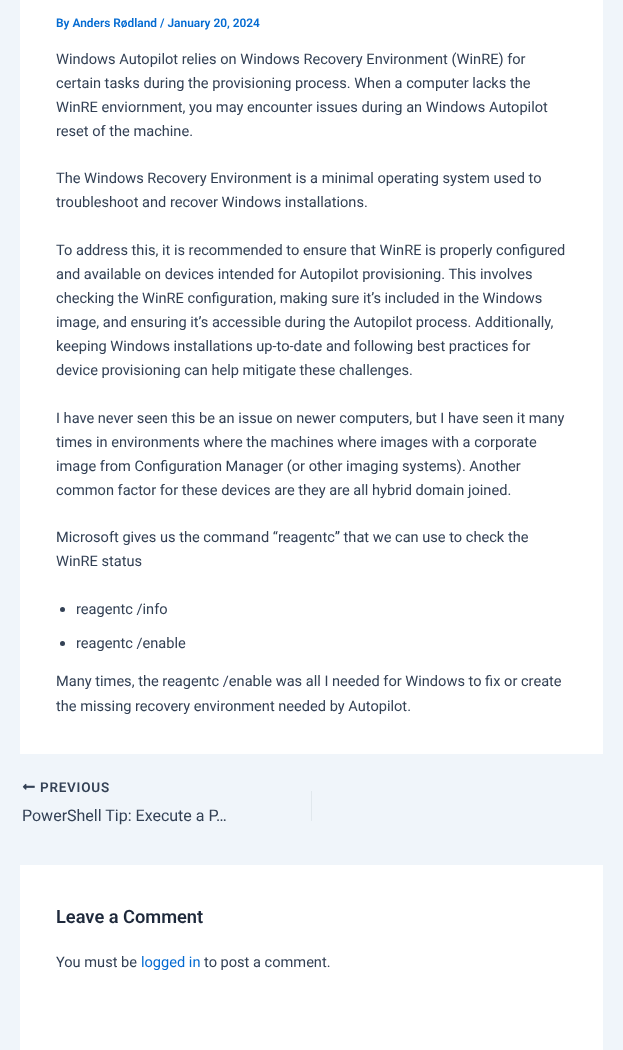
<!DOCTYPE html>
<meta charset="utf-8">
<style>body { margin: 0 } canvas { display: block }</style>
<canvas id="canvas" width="623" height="1050"></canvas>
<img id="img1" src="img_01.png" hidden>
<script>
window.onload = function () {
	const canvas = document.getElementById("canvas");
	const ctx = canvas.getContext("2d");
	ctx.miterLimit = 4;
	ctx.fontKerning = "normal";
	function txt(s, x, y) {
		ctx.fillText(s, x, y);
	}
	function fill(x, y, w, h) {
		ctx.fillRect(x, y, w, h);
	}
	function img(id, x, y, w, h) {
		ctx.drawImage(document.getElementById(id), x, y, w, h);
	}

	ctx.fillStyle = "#F0F5FA";
	fill(0, 0, 623, 1050);
	ctx.fillStyle = "#FFFFFF";
	fill(20, 0, 583, 754);
	ctx.fillStyle = "#334155";
	ctx.beginPath();
	ctx.arc(62.5, 609.5, 2.5, 0, Math.PI * 2);
	ctx.fill();
	ctx.beginPath();
	ctx.arc(62.5, 643.5, 2.5, 0, Math.PI * 2);
	ctx.fill();
	img("img1", 22, 783, 13, 7);
	ctx.fillStyle = "#E1E8ED";
	fill(311, 791, 1, 30);
	ctx.fillStyle = "#FFFFFF";
	fill(20, 865, 583, 185);
	ctx.font = "600 11.9px Roboto";
	ctx.fillStyle = "#046BD2";
	txt("By Anders Rødland / January 20, 2024", 56, 27);
	ctx.font = "14.6px Roboto";
	ctx.fillStyle = "#334155";
	txt("Windows Autopilot relies on Windows Recovery Environment (WinRE) for", 56, 64);
	txt("certain tasks during the provisioning process. When a computer lacks the", 56, 88);
	txt("WinRE enviornment, you may encounter issues during an Windows Autopilot", 56, 112);
	txt("reset of the machine.", 56, 136);
	txt("The Windows Recovery Environment is a minimal operating system used to", 56, 183);
	txt("troubleshoot and recover Windows installations.", 56, 207);
	txt("To address this, it is recommended to ensure that WinRE is properly configured", 56, 255);
	txt("and available on devices intended for Autopilot provisioning. This involves", 56, 279);
	txt("checking the WinRE configuration, making sure it’s included in the Windows", 56, 303);
	txt("image, and ensuring it’s accessible during the Autopilot process. Additionally,", 56, 327);
	txt("keeping Windows installations up-to-date and following best practices for", 56, 351);
	txt("device provisioning can help mitigate these challenges.", 56, 375);
	txt("I have never seen this be an issue on newer computers, but I have seen it many", 56, 423);
	txt("times in environments where the machines where images with a corporate", 56, 447);
	txt("image from Configuration Manager (or other imaging systems). Another", 56, 471);
	txt("common factor for these devices are they are all hybrid domain joined.", 56, 495);
	txt("Microsoft gives us the command “reagentc” that we can use to check the", 56, 542);
	txt("WinRE status", 56, 566);
	txt("reagentc /info", 76, 614);
	txt("reagentc /enable", 76, 648);
	txt("Many times, the reagentc /enable was all I needed for Windows to fix or create", 56, 686);
	txt("the missing recovery environment needed by Autopilot.", 56, 711);
	ctx.letterSpacing = "0.75px";
	ctx.font = "600 13.5px Roboto";
	txt("PREVIOUS", 40, 792);
	ctx.letterSpacing = "0px";
	ctx.font = "16px Roboto";
	txt("PowerShell Tip: Execute a P…", 22, 821);
	ctx.font = "600 18.25px Roboto";
	ctx.fillStyle = "#1E293B";
	txt("Leave a Comment", 56, 923);
	ctx.font = "14.6px Roboto";
	ctx.fillStyle = "#334155";
	txt("You must be", 56, 967);
	ctx.fillStyle = "#046BD2";
	txt("logged in", 141, 967);
	ctx.fillStyle = "#334155";
	txt("to post a comment.", 204, 967);
};
</script>
